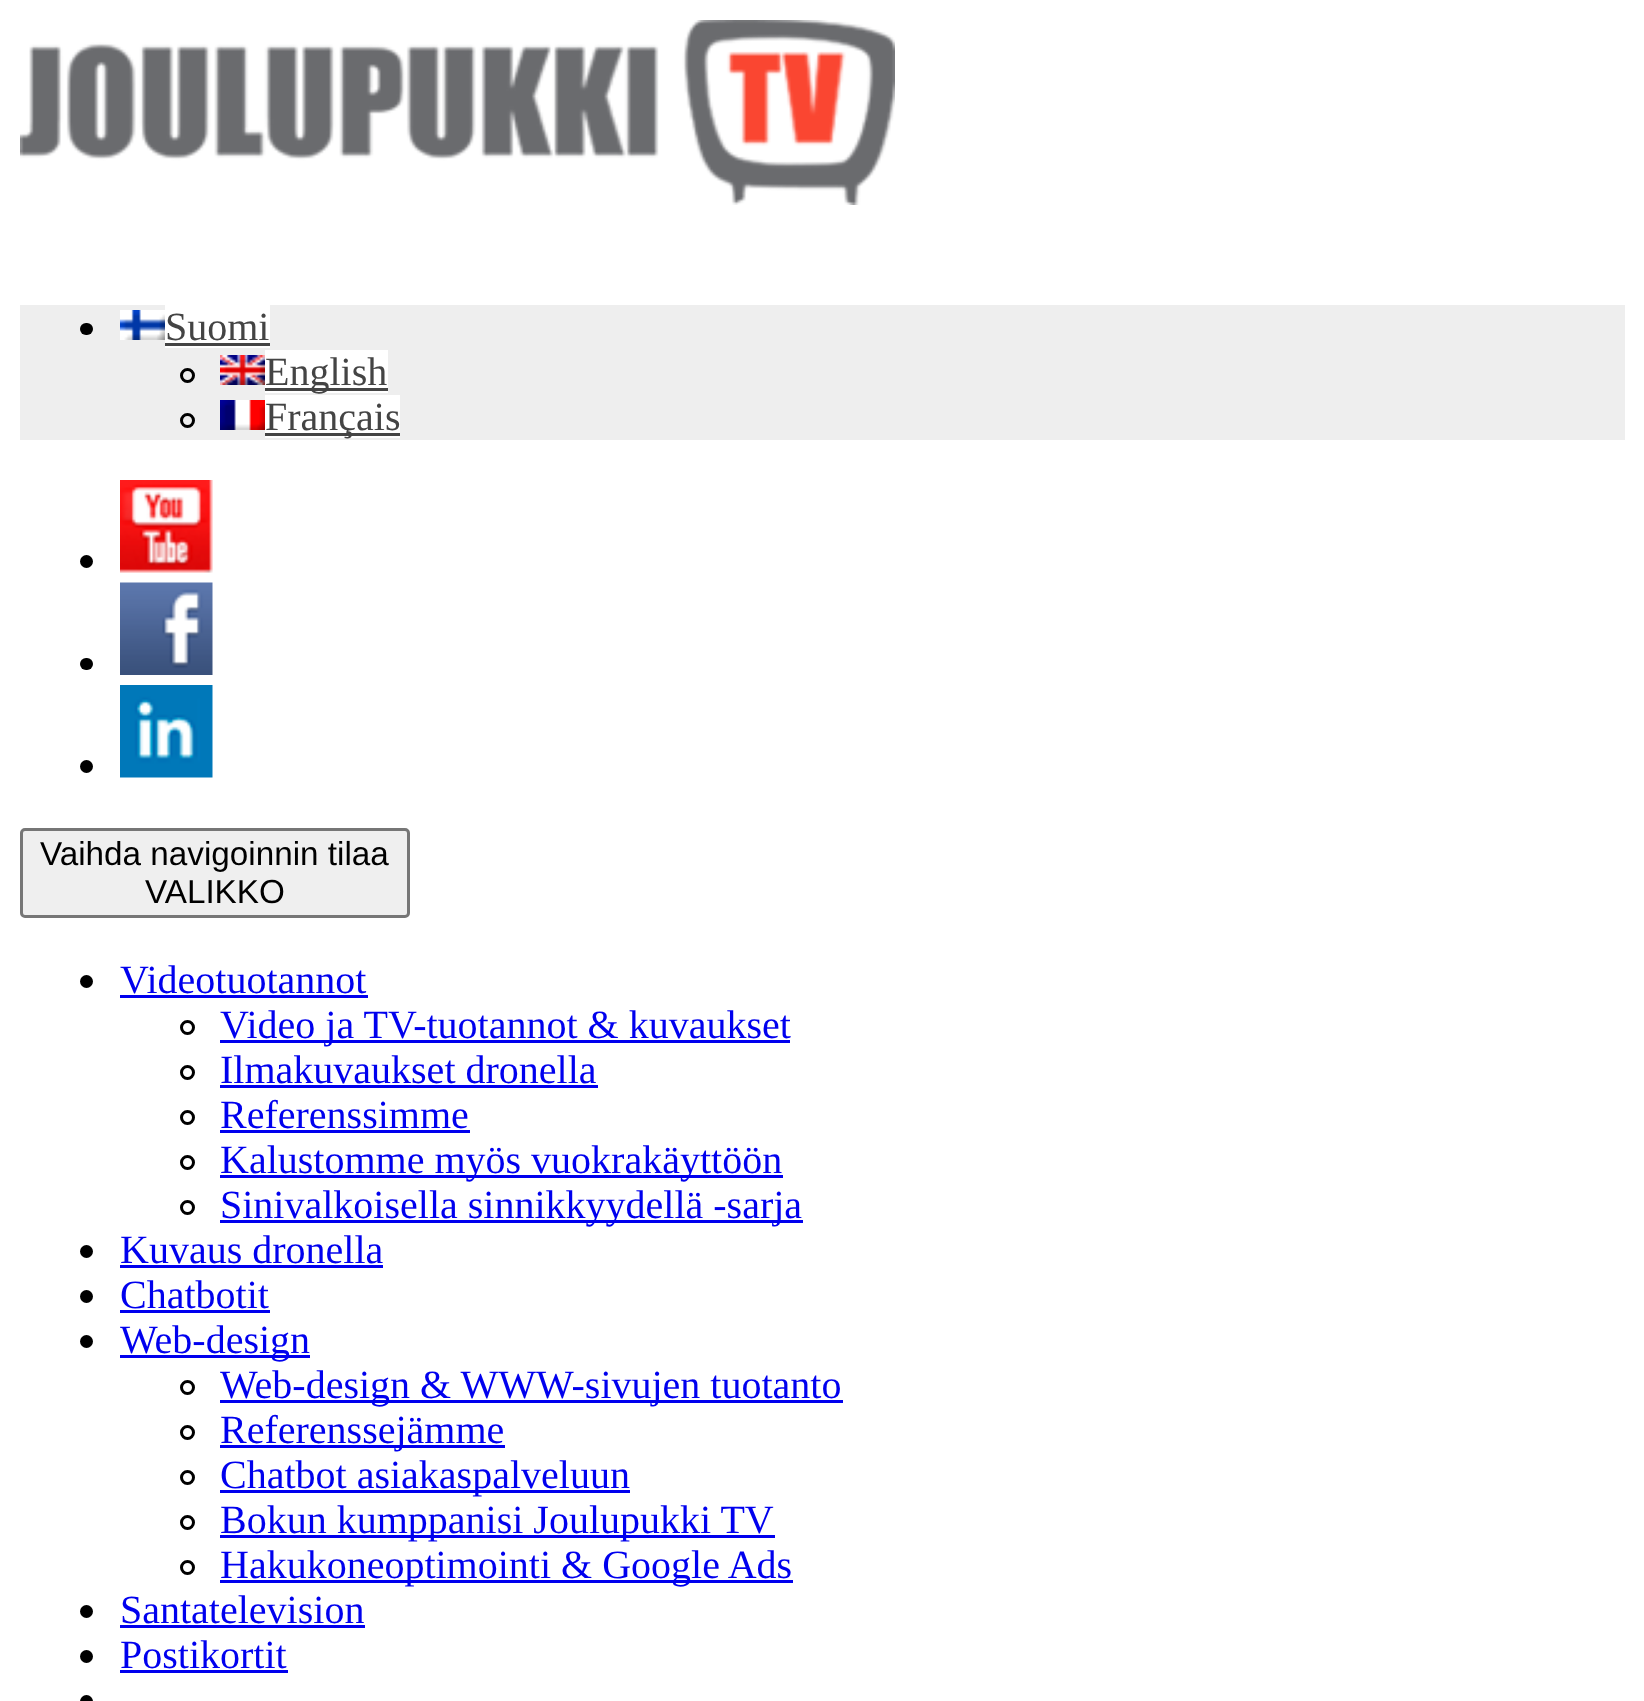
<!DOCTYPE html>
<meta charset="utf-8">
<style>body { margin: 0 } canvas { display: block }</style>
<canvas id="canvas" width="1644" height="1701"></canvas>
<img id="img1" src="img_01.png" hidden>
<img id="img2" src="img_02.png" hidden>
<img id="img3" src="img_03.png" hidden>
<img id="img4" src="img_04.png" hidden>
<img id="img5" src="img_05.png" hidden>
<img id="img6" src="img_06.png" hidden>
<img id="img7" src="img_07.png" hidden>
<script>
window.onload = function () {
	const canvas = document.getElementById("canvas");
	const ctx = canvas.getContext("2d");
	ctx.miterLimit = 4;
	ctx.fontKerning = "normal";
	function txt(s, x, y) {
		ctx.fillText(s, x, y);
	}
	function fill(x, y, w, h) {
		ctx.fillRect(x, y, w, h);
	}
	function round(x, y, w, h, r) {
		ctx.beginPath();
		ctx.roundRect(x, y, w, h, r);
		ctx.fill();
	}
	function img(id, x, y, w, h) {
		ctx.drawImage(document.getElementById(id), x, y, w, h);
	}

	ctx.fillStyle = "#FFFFFF";
	fill(0, 0, 1644, 1701);
	img("img1", 20, 20, 875, 185);
	ctx.fillStyle = "#EEEEEE";
	fill(20, 305, 1605, 135);
	ctx.fillStyle = "#000000";
	round(80, 323, 13, 12, 6);
	img("img2", 120, 310, 45, 30);
	ctx.fillStyle = "#FFFFFF";
	fill(165, 305, 105, 43);
	ctx.fillStyle = "#444444";
	fill(165, 343, 105, 3);
	ctx.beginPath();
	ctx.arc(187.5, 375.5, 6, 0, Math.PI * 2);
	ctx.strokeStyle = "#000000";
	ctx.lineWidth = 3;
	ctx.stroke();
	img("img3", 220, 355, 45, 30);
	ctx.fillStyle = "#FFFFFF";
	fill(265, 350, 123, 43);
	ctx.fillStyle = "#444444";
	fill(265, 388, 123, 3);
	ctx.beginPath();
	ctx.arc(187.5, 420.5, 6, 0, Math.PI * 2);
	ctx.stroke();
	img("img4", 220, 400, 45, 30);
	ctx.fillStyle = "#FFFFFF";
	fill(265, 395, 135, 43);
	ctx.fillStyle = "#444444";
	fill(265, 433, 135, 3);
	ctx.fillStyle = "#000000";
	ctx.beginPath();
	ctx.arc(86.5, 561.5, 6.5, 0, Math.PI * 2);
	ctx.fill();
	img("img5", 120, 480, 93, 93);
	round(80, 658, 13, 12, 6);
	img("img6", 120, 582, 93, 93);
	ctx.beginPath();
	ctx.arc(86.5, 766.5, 6.5, 0, Math.PI * 2);
	ctx.fill();
	img("img7", 120, 685, 93, 93);
	ctx.fillStyle = "#EFEFEF";
	ctx.beginPath();
	ctx.roundRect(21.5, 829.5, 387, 87, 3.5);
	ctx.fill();
	ctx.strokeStyle = "#767676";
	ctx.stroke();
	ctx.fillStyle = "#000000";
	ctx.beginPath();
	ctx.arc(86.5, 981.5, 6.5, 0, Math.PI * 2);
	ctx.fill();
	ctx.fillStyle = "#0000EE";
	fill(120, 995, 248, 3);
	ctx.beginPath();
	ctx.arc(187.5, 1027.5, 6, 0, Math.PI * 2);
	ctx.strokeStyle = "#000000";
	ctx.stroke();
	fill(220, 1040, 570, 3);
	ctx.beginPath();
	ctx.arc(187.5, 1072.5, 6, 0, Math.PI * 2);
	ctx.stroke();
	fill(220, 1085, 378, 3);
	ctx.beginPath();
	ctx.arc(187.5, 1117.5, 6, 0, Math.PI * 2);
	ctx.stroke();
	fill(220, 1130, 250, 3);
	ctx.beginPath();
	ctx.arc(187.5, 1162.5, 6, 0, Math.PI * 2);
	ctx.stroke();
	fill(220, 1175, 563, 3);
	ctx.beginPath();
	ctx.arc(187.5, 1207.5, 6, 0, Math.PI * 2);
	ctx.stroke();
	fill(220, 1220, 583, 3);
	ctx.fillStyle = "#000000";
	ctx.beginPath();
	ctx.arc(86.5, 1251.5, 6.5, 0, Math.PI * 2);
	ctx.fill();
	ctx.fillStyle = "#0000EE";
	fill(120, 1265, 263, 3);
	ctx.fillStyle = "#000000";
	ctx.beginPath();
	ctx.arc(86.5, 1296.5, 6.5, 0, Math.PI * 2);
	ctx.fill();
	ctx.fillStyle = "#0000EE";
	fill(120, 1310, 150, 3);
	ctx.fillStyle = "#000000";
	ctx.beginPath();
	ctx.arc(86.5, 1341.5, 6.5, 0, Math.PI * 2);
	ctx.fill();
	ctx.fillStyle = "#0000EE";
	fill(120, 1355, 190, 3);
	ctx.beginPath();
	ctx.arc(187.5, 1387.5, 6, 0, Math.PI * 2);
	ctx.stroke();
	fill(220, 1400, 623, 3);
	ctx.beginPath();
	ctx.arc(187.5, 1432.5, 6, 0, Math.PI * 2);
	ctx.stroke();
	fill(220, 1445, 285, 3);
	ctx.beginPath();
	ctx.arc(187.5, 1477.5, 6, 0, Math.PI * 2);
	ctx.stroke();
	fill(220, 1490, 410, 3);
	ctx.beginPath();
	ctx.arc(187.5, 1522.5, 6, 0, Math.PI * 2);
	ctx.stroke();
	fill(220, 1535, 555, 3);
	ctx.beginPath();
	ctx.arc(187.5, 1567.5, 6, 0, Math.PI * 2);
	ctx.stroke();
	fill(220, 1580, 573, 3);
	ctx.fillStyle = "#000000";
	ctx.beginPath();
	ctx.arc(86.5, 1611.5, 6.5, 0, Math.PI * 2);
	ctx.fill();
	ctx.fillStyle = "#0000EE";
	fill(120, 1625, 245, 3);
	ctx.fillStyle = "#000000";
	ctx.beginPath();
	ctx.arc(86.5, 1656.5, 6.5, 0, Math.PI * 2);
	ctx.fill();
	ctx.fillStyle = "#0000EE";
	fill(120, 1670, 168, 3);
	ctx.fillStyle = "#000000";
	ctx.beginPath();
	ctx.arc(86.5, 1701.5, 6.5, 0, Math.PI * 2);
	ctx.fill();
	ctx.font = "40px Liberation Serif";
	ctx.fillStyle = "#444444";
	txt("Suomi", 165, 340);
	txt("English", 265, 385);
	txt("Français", 265, 430);
	ctx.font = "33.25px Liberation Sans";
	ctx.fillStyle = "#000000";
	txt("Vaihda navigoinnin tilaa", 40, 865);
	txt("VALIKKO", 145, 903);
	ctx.font = "40px Liberation Serif";
	ctx.fillStyle = "#0000EE";
	txt("Videotuotannot", 120, 993);
	txt("Video ja TV-tuotannot & kuvaukset", 220, 1038);
	txt("Ilmakuvaukset dronella", 220, 1083);
	txt("Referenssimme", 220, 1128);
	txt("Kalustomme myös vuokrakäyttöön", 220, 1173);
	txt("Sinivalkoisella sinnikkyydellä -sarja", 220, 1218);
	txt("Kuvaus dronella", 120, 1263);
	txt("Chatbotit", 120, 1308);
	txt("Web-design", 120, 1353);
	txt("Web-design & WWW-sivujen tuotanto", 220, 1398);
	txt("Referenssejämme", 220, 1443);
	txt("Chatbot asiakaspalveluun", 220, 1488);
	txt("Bokun kumppanisi Joulupukki TV", 220, 1533);
	txt("Hakukoneoptimointi & Google Ads", 220, 1578);
	txt("Santatelevision", 120, 1623);
	txt("Postikortit", 120, 1668);
};
</script>
